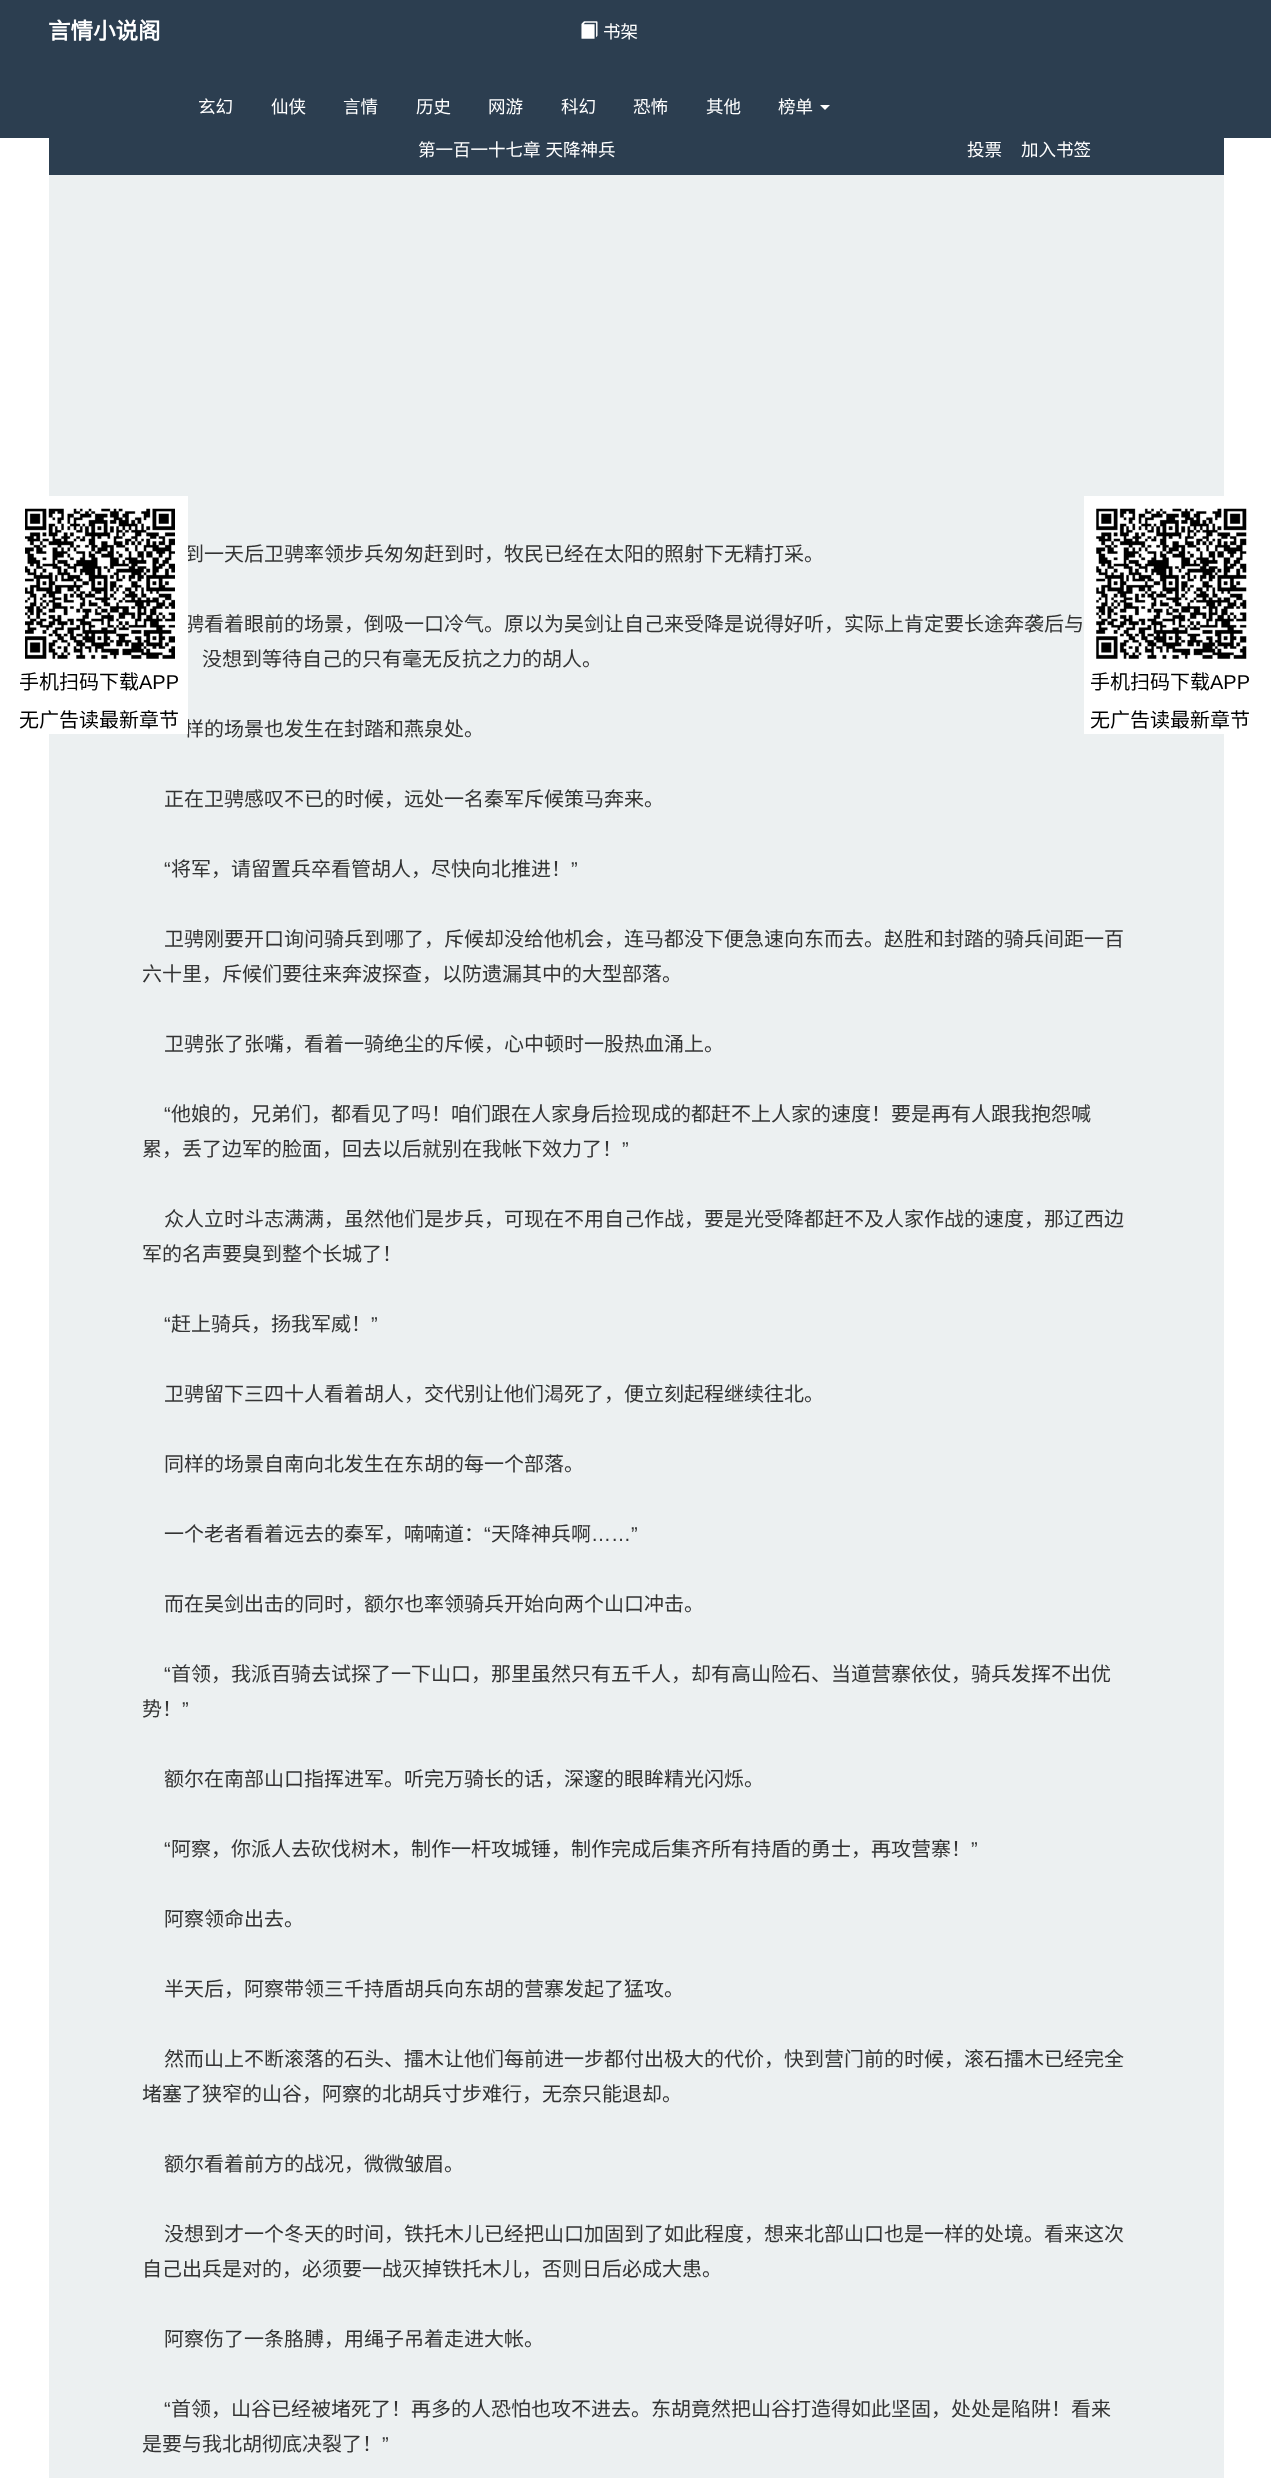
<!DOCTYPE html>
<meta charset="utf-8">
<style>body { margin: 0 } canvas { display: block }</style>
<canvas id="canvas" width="1271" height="2478"></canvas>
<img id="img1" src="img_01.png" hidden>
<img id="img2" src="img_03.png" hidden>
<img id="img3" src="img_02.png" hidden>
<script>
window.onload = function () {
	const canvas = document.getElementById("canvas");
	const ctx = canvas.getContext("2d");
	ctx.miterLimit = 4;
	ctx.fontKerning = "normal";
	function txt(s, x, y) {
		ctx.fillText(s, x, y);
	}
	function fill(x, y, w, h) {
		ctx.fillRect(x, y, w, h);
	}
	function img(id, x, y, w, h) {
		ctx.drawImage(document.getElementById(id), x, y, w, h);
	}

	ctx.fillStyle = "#FFFFFF";
	fill(0, 0, 1271, 2478);
	ctx.fillStyle = "#2C3E50";
	fill(0, 0, 1271, 138);
	img("img1", 581, 21, 17, 18);
	ctx.fillStyle = "#FFFFFF";
	ctx.beginPath();
	ctx.moveTo(820, 105);
	ctx.lineTo(830, 105);
	ctx.lineTo(825, 110);
	ctx.closePath();
	ctx.fill();
	ctx.fillStyle = "#ECF0F1";
	fill(49, 175, 1175, 2303);
	ctx.fillStyle = "#2C3E50";
	fill(49, 138, 1175, 37);
	ctx.fillStyle = "#FFFFFF";
	fill(1084, 496, 140, 238);
	img("img2", 1096, 508, 151, 151);
	ctx.font = "bold 22.5px Noto Sans CJK SC";
	txt("言情小说阁", 48, 39);
	ctx.font = "17.5px Noto Sans CJK SC";
	txt("书架", 603, 38);
	txt("玄幻", 198, 113);
	txt("仙侠", 271, 113);
	txt("言情", 343, 113);
	txt("历史", 416, 113);
	txt("网游", 488, 113);
	txt("科幻", 561, 113);
	txt("恐怖", 633, 113);
	txt("其他", 706, 113);
	txt("榜单", 778, 113);
	ctx.wordSpacing = "1px";
	txt("第一百一十七章 天降神兵", 418, 156);
	ctx.wordSpacing = "0px";
	txt("投票", 967, 156);
	txt("加入书签", 1021, 156);
	ctx.font = "20px Noto Sans CJK SC";
	ctx.fillStyle = "#333333";
	txt("到一天后卫骋率领步兵匆匆赶到时，牧民已经在太阳的照射下无精打采。", 184, 561);
	txt("骋看着眼前的场景，倒吸一口冷气。原以为吴剑让自己来受降是说得好听，实际上肯定要长途奔袭后与", 184, 631);
	txt("没想到等待自己的只有毫无反抗之力的胡人。", 202, 666);
	txt("样的场景也发生在封踏和燕泉处。", 184, 736);
	ctx.fillStyle = "#FFFFFF";
	fill(49, 496, 139, 238);
	ctx.fillStyle = "#000000";
	txt("无广告读最新章节", 19, 727);
	ctx.font = "20px Liberation Sans";
	txt("APP", 139, 689);
	ctx.font = "20px Noto Sans CJK SC";
	txt("手机扫码下载", 19, 689);
	img("img3", 25, 508, 150, 151);
	ctx.fillStyle = "#333333";
	txt("正在卫骋感叹不已的时候，远处一名秦军斥候策马奔来。", 164, 806);
	ctx.font = "20px Liberation Sans";
	txt("“", 164, 876);
	ctx.font = "20px Noto Sans CJK SC";
	txt("将军，请留置兵卒看管胡人，尽快向北推进！", 171, 876);
	ctx.font = "20px Liberation Sans";
	txt("”", 571, 876);
	ctx.font = "20px Noto Sans CJK SC";
	txt("卫骋刚要开口询问骑兵到哪了，斥候却没给他机会，连马都没下便急速向东而去。赵胜和封踏的骑兵间距一百", 164, 946);
	txt("六十里，斥候们要往来奔波探查，以防遗漏其中的大型部落。", 142, 981);
	txt("卫骋张了张嘴，看着一骑绝尘的斥候，心中顿时一股热血涌上。", 164, 1051);
	ctx.font = "20px Liberation Sans";
	txt("“", 164, 1121);
	ctx.font = "20px Noto Sans CJK SC";
	txt("他娘的，兄弟们，都看见了吗！咱们跟在人家身后捡现成的都赶不上人家的速度！要是再有人跟我抱怨喊", 171, 1121);
	txt("累，丢了边军的脸面，回去以后就别在我帐下效力了！", 142, 1156);
	ctx.font = "20px Liberation Sans";
	txt("”", 622, 1156);
	ctx.font = "20px Noto Sans CJK SC";
	txt("众人立时斗志满满，虽然他们是步兵，可现在不用自己作战，要是光受降都赶不及人家作战的速度，那辽西边", 164, 1226);
	txt("军的名声要臭到整个长城了！", 142, 1261);
	ctx.font = "20px Liberation Sans";
	txt("“", 164, 1331);
	ctx.font = "20px Noto Sans CJK SC";
	txt("赶上骑兵，扬我军威！", 171, 1331);
	ctx.font = "20px Liberation Sans";
	txt("”", 371, 1331);
	ctx.font = "20px Noto Sans CJK SC";
	txt("卫骋留下三四十人看着胡人，交代别让他们渴死了，便立刻起程继续往北。", 164, 1401);
	txt("同样的场景自南向北发生在东胡的每一个部落。", 164, 1471);
	txt("一个老者看着远去的秦军，喃喃道：", 164, 1541);
	ctx.font = "20px Liberation Sans";
	txt("“", 484, 1541);
	ctx.font = "20px Noto Sans CJK SC";
	txt("天降神兵啊", 491, 1541);
	ctx.font = "20px Liberation Sans";
	txt("……”", 591, 1541);
	ctx.font = "20px Noto Sans CJK SC";
	txt("而在吴剑出击的同时，额尔也率领骑兵开始向两个山口冲击。", 164, 1611);
	ctx.font = "20px Liberation Sans";
	txt("“", 164, 1681);
	ctx.font = "20px Noto Sans CJK SC";
	txt("首领，我派百骑去试探了一下山口，那里虽然只有五千人，却有高山险石、当道营寨依仗，骑兵发挥不出优", 171, 1681);
	txt("势！", 142, 1716);
	ctx.font = "20px Liberation Sans";
	txt("”", 182, 1716);
	ctx.font = "20px Noto Sans CJK SC";
	txt("额尔在南部山口指挥进军。听完万骑长的话，深邃的眼眸精光闪烁。", 164, 1786);
	ctx.font = "20px Liberation Sans";
	txt("“", 164, 1856);
	ctx.font = "20px Noto Sans CJK SC";
	txt("阿察，你派人去砍伐树木，制作一杆攻城锤，制作完成后集齐所有持盾的勇士，再攻营寨！", 171, 1856);
	ctx.font = "20px Liberation Sans";
	txt("”", 971, 1856);
	ctx.font = "20px Noto Sans CJK SC";
	txt("阿察领命出去。", 164, 1926);
	txt("半天后，阿察带领三千持盾胡兵向东胡的营寨发起了猛攻。", 164, 1996);
	txt("然而山上不断滚落的石头、擂木让他们每前进一步都付出极大的代价，快到营门前的时候，滚石擂木已经完全", 164, 2066);
	txt("堵塞了狭窄的山谷，阿察的北胡兵寸步难行，无奈只能退却。", 142, 2101);
	txt("额尔看着前方的战况，微微皱眉。", 164, 2171);
	txt("没想到才一个冬天的时间，铁托木儿已经把山口加固到了如此程度，想来北部山口也是一样的处境。看来这次", 164, 2241);
	txt("自己出兵是对的，必须要一战灭掉铁托木儿，否则日后必成大患。", 142, 2276);
	txt("阿察伤了一条胳膊，用绳子吊着走进大帐。", 164, 2346);
	ctx.font = "20px Liberation Sans";
	txt("“", 164, 2416);
	ctx.font = "20px Noto Sans CJK SC";
	txt("首领，山谷已经被堵死了！再多的人恐怕也攻不进去。东胡竟然把山谷打造得如此坚固，处处是陷阱！看来", 171, 2416);
	txt("是要与我北胡彻底决裂了！", 142, 2451);
	ctx.font = "20px Liberation Sans";
	txt("”", 382, 2451);
	ctx.font = "20px Noto Sans CJK SC";
	ctx.fillStyle = "#000000";
	txt("手机扫码下载", 1090, 689);
	ctx.font = "20px Liberation Sans";
	txt("APP", 1210, 689);
	ctx.font = "20px Noto Sans CJK SC";
	txt("无广告读最新章节", 1090, 727);
};
</script>
